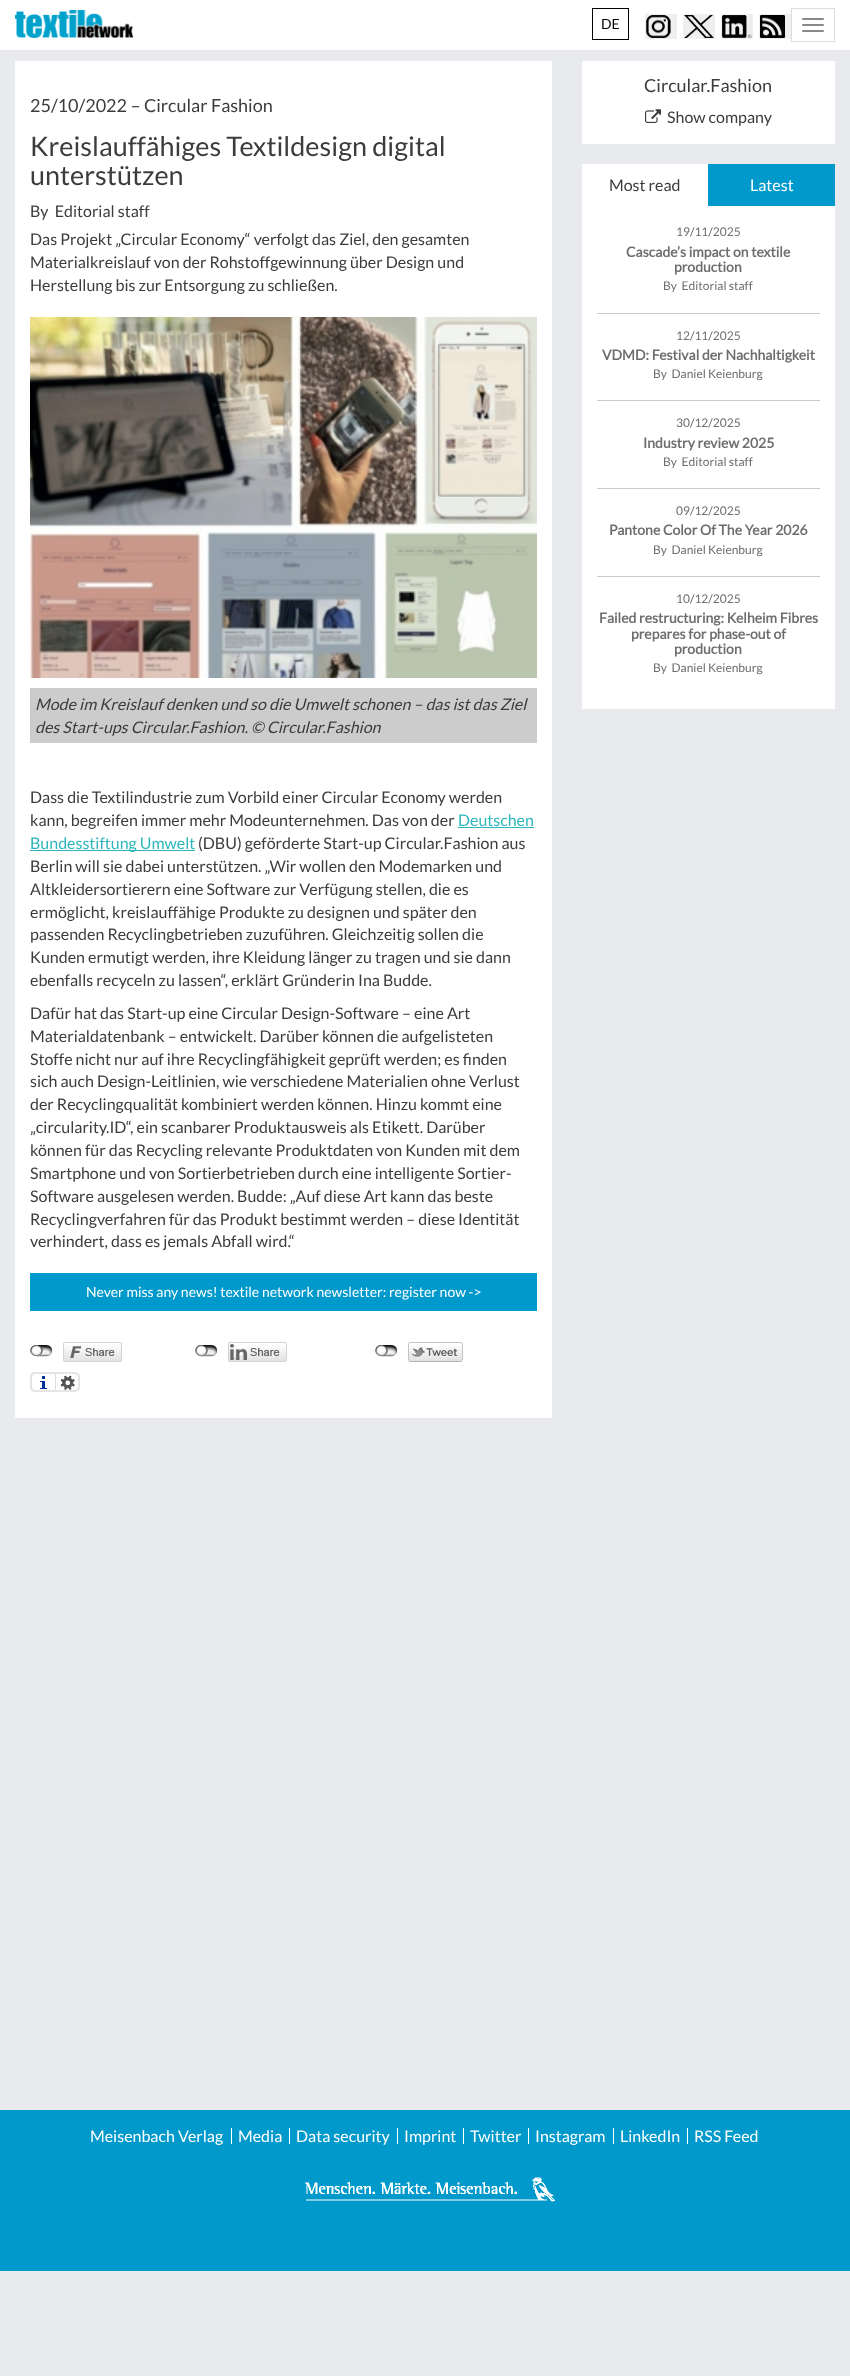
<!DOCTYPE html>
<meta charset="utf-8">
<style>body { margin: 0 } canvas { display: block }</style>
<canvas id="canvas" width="850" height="2376"></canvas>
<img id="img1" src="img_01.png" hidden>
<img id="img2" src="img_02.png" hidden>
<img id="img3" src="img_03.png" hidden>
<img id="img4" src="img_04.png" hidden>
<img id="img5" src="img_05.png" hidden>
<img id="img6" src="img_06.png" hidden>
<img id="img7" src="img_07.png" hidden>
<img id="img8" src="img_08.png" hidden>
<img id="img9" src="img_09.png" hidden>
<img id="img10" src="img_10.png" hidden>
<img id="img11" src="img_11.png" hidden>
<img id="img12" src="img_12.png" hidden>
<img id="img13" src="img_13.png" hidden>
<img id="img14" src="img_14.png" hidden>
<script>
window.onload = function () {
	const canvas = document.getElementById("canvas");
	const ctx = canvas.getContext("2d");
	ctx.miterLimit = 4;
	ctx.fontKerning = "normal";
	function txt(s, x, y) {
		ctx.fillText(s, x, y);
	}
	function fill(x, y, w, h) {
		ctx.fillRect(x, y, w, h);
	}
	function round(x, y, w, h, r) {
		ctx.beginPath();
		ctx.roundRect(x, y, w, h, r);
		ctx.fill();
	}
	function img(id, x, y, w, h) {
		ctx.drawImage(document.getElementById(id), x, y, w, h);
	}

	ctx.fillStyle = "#E9EAED";
	fill(0, 0, 850, 2376);
	ctx.fillStyle = "#FFFFFF";
	fill(0, 0, 850, 50);
	img("img1", 15, 10, 119, 28);
	ctx.strokeStyle = "#000000";
	ctx.strokeRect(592.5, 8.5, 36, 31);
	ctx.fillStyle = "#EFEFEF";
	fill(645, 14, 32, 25);
	img("img2", 646, 15, 25, 23);
	fill(683, 14, 32, 25);
	img("img3", 684, 15, 30, 23);
	fill(721, 14, 32, 25);
	img("img4", 722, 15, 30, 23);
	fill(759, 14, 32, 25);
	img("img5", 760, 15, 25, 23);
	ctx.strokeStyle = "#DDDDDD";
	ctx.strokeRect(791.5, 8.5, 43, 33);
	ctx.fillStyle = "#888888";
	round(802, 18, 22, 2, 1);
	round(802, 24, 22, 2, 1);
	round(802, 30, 22, 2, 1);
	ctx.fillStyle = "#FFFFFF";
	fill(15, 61, 537, 1357);
	img("img6", 30, 317, 507, 361);
	ctx.fillStyle = "#CCCCCC";
	fill(30, 688, 507, 55);
	ctx.fillStyle = "#2DB7BC";
	fill(458, 827, 76, 1);
	fill(30, 850, 165, 1);
	ctx.fillStyle = "#0099CC";
	fill(30, 1273, 507, 38);
	img("img7", 30, 1345, 23, 12);
	img("img8", 63, 1342, 59, 20);
	img("img7", 195, 1345, 23, 12);
	img("img9", 228, 1342, 59, 20);
	img("img7", 375, 1345, 23, 12);
	img("img10", 408, 1342, 55, 20);
	img("img11", 40, 1376, 7, 13);
	ctx.fillStyle = "#E7E3E3";
	ctx.beginPath();
	ctx.moveTo(35, 1372);
	ctx.lineTo(55, 1372);
	ctx.lineTo(55, 1392);
	ctx.lineTo(35, 1392);
	ctx.bezierCurveTo(32, 1392, 30, 1390, 30, 1387);
	ctx.lineTo(30, 1377);
	ctx.bezierCurveTo(30, 1374, 32, 1372, 35, 1372);
	ctx.closePath();
	ctx.moveTo(35, 1374);
	ctx.lineTo(55, 1374);
	ctx.lineTo(55, 1390);
	ctx.lineTo(35, 1390);
	ctx.bezierCurveTo(33.5, 1390, 32, 1388.5, 32, 1387);
	ctx.lineTo(32, 1377);
	ctx.bezierCurveTo(32, 1375.5, 33.5, 1374, 35, 1374);
	ctx.closePath();
	ctx.fill("evenodd");
	img("img12", 60, 1375, 15, 15);
	ctx.beginPath();
	ctx.moveTo(55, 1372);
	ctx.lineTo(56, 1374);
	ctx.bezierCurveTo(59, 1374, 75, 1373, 77, 1375);
	ctx.lineTo(78.5, 1373.5);
	ctx.bezierCurveTo(77.5, 1372.5, 75.5, 1372, 71.5, 1372);
	ctx.closePath();
	ctx.fill();
	ctx.beginPath();
	ctx.moveTo(80, 1385);
	ctx.bezierCurveTo(80, 1388, 80, 1389.5, 78.5, 1390.5);
	ctx.lineTo(77, 1389);
	ctx.lineTo(78, 1387.5);
	ctx.lineTo(78, 1376.5);
	ctx.lineTo(77, 1375);
	ctx.lineTo(78.5, 1373.5);
	ctx.bezierCurveTo(81, 1375.5, 80, 1382.5, 80, 1385);
	ctx.closePath();
	ctx.fill();
	ctx.beginPath();
	ctx.moveTo(71.5, 1392);
	ctx.bezierCurveTo(75.5, 1392, 77.5, 1391.5, 78.5, 1390.5);
	ctx.lineTo(77, 1389);
	ctx.bezierCurveTo(75, 1391, 59, 1390, 56, 1390);
	ctx.lineTo(55, 1392);
	ctx.closePath();
	ctx.fill();
	ctx.fillStyle = "#DDDDDD";
	ctx.beginPath();
	ctx.moveTo(55, 1372);
	ctx.lineTo(55, 1392);
	ctx.lineTo(56, 1390);
	ctx.lineTo(56, 1374);
	ctx.closePath();
	ctx.fill();
	ctx.fillStyle = "#FFFFFF";
	fill(582, 61, 253, 83);
	img("img13", 645, 109, 16, 14);
	fill(582, 164, 253, 545);
	ctx.fillStyle = "#0099CC";
	fill(708, 164, 127, 42);
	ctx.fillStyle = "#CCCCCC";
	fill(597, 313, 223, 1);
	fill(597, 400, 223, 1);
	fill(597, 488, 223, 1);
	fill(597, 576, 223, 1);
	ctx.fillStyle = "#0099CC";
	fill(0, 2110, 850, 161);
	ctx.fillStyle = "#FFFFFF";
	fill(231, 2128, 1, 16);
	fill(289, 2128, 1, 16);
	fill(397, 2128, 1, 16);
	fill(463, 2128, 1, 16);
	fill(528, 2128, 1, 16);
	fill(613, 2128, 1, 16);
	fill(687, 2128, 1, 16);
	img("img14", 305, 2177, 250, 25);
	ctx.font = "14px Lato";
	ctx.fillStyle = "#000000";
	txt("DE", 601, 29);
	ctx.font = "18px Lato";
	ctx.fillStyle = "#3C3C3C";
	txt("25/10/2022 – Circular Fashion", 30, 112);
	ctx.font = "27px Lato";
	txt("Kreislauffähiges Textildesign digital", 30, 156);
	txt("unterstützen", 30, 185);
	ctx.font = "16px Lato";
	txt("By  Editorial staff", 30, 217);
	txt("Das Projekt „Circular Economy“ verfolgt das Ziel, den gesamten", 30, 245);
	txt("Materialkreislauf von der Rohstoffgewinnung über Design und", 30, 268);
	txt("Herstellung bis zur Entsorgung zu schließen.", 30, 291);
	ctx.font = "italic 16px Lato";
	txt("Mode im Kreislauf denken und so die Umwelt schonen – das ist das Ziel", 35, 710);
	txt("des Start-ups Circular.Fashion. © Circular.Fashion", 35, 733);
	ctx.font = "16px Lato";
	txt("Dass die Textilindustrie zum Vorbild einer Circular Economy werden", 30, 803);
	txt("kann, begreifen immer mehr Modeunternehmen. Das von der", 30, 826);
	ctx.fillStyle = "#2DB7BC";
	txt("Deutschen", 458, 826);
	txt("Bundesstiftung Umwelt", 30, 849);
	ctx.fillStyle = "#3C3C3C";
	txt("(DBU) geförderte Start-up Circular.Fashion aus", 198, 849);
	txt("Berlin will sie dabei unterstützen. „Wir wollen den Modemarken und", 30, 872);
	txt("Altkleidersortierern eine Software zur Verfügung stellen, die es", 30, 895);
	txt("ermöglicht, kreislauffähige Produkte zu designen und später den", 30, 918);
	txt("passenden Recyclingbetrieben zuzuführen. Gleichzeitig sollen die", 30, 940);
	txt("Kunden ermutigt werden, ihre Kleidung länger zu tragen und sie dann", 30, 963);
	txt("ebenfalls recyceln zu lassen“, erklärt Gründerin Ina Budde.", 30, 986);
	txt("Dafür hat das Start-up eine Circular Design-Software – eine Art", 30, 1019);
	txt("Materialdatenbank – entwickelt. Darüber können die aufgelisteten", 30, 1042);
	txt("Stoffe nicht nur auf ihre Recyclingfähigkeit geprüft werden; es finden", 30, 1065);
	txt("sich auch Design-Leitlinien, wie verschiedene Materialien ohne Verlust", 30, 1087);
	txt("der Recyclingqualität kombiniert werden können. Hinzu kommt eine", 30, 1110);
	txt("„circularity.ID“, ein scanbarer Produktausweis als Etikett. Darüber", 30, 1133);
	txt("können für das Recycling relevante Produktdaten von Kunden mit dem", 30, 1156);
	txt("Smartphone und von Sortierbetrieben durch eine intelligente Sortier-", 30, 1179);
	txt("Software ausgelesen werden. Budde: „Auf diese Art kann das beste", 30, 1202);
	txt("Recyclingverfahren für das Produkt bestimmt werden – diese Identität", 30, 1225);
	txt("verhindert, dass es jemals Abfall wird.“", 30, 1247);
	ctx.font = "14px Lato";
	ctx.fillStyle = "#FFFFFF";
	txt("Never miss any news! textile network newsletter: register now ->", 86, 1297);
	ctx.font = "18px Lato";
	ctx.fillStyle = "#3C3C3C";
	txt("Circular.Fashion", 644, 92);
	ctx.font = "16px Lato";
	txt("Show company", 667, 123);
	txt("Most read", 609, 191);
	ctx.fillStyle = "#FFFFFF";
	txt("Latest", 750, 191);
	ctx.font = "12px Lato";
	ctx.fillStyle = "#6D6D6D";
	txt("19/11/2025", 676, 236);
	ctx.font = "bold 14px Lato";
	txt("Cascade’s impact on textile", 626, 257);
	txt("production", 674, 272);
	ctx.font = "12px Lato";
	txt("By  Editorial staff", 663, 290);
	txt("12/11/2025", 676, 340);
	ctx.font = "bold 14px Lato";
	txt("VDMD: Festival der Nachhaltigkeit", 602, 360);
	ctx.font = "12px Lato";
	txt("By  Daniel Keienburg", 653, 378);
	txt("30/12/2025", 676, 427);
	ctx.font = "bold 14px Lato";
	txt("Industry review 2025", 643, 448);
	ctx.font = "12px Lato";
	txt("By  Editorial staff", 663, 466);
	txt("09/12/2025", 676, 515);
	ctx.font = "bold 14px Lato";
	txt("Pantone Color Of The Year 2026", 609, 535);
	ctx.font = "12px Lato";
	txt("By  Daniel Keienburg", 653, 554);
	txt("10/12/2025", 676, 603);
	ctx.font = "bold 14px Lato";
	txt("Failed restructuring: Kelheim Fibres", 599, 623);
	txt("prepares for phase-out of", 631, 639);
	txt("production", 674, 654);
	ctx.font = "12px Lato";
	txt("By  Daniel Keienburg", 653, 672);
	ctx.font = "16px Lato";
	ctx.fillStyle = "#FFFFFF";
	txt("Meisenbach Verlag", 90, 2142);
	txt("Media", 238, 2142);
	txt("Data security", 296, 2142);
	txt("Imprint", 404, 2142);
	txt("Twitter", 470, 2142);
	txt("Instagram", 535, 2142);
	txt("LinkedIn", 620, 2142);
	txt("RSS Feed", 694, 2142);
};
</script>
